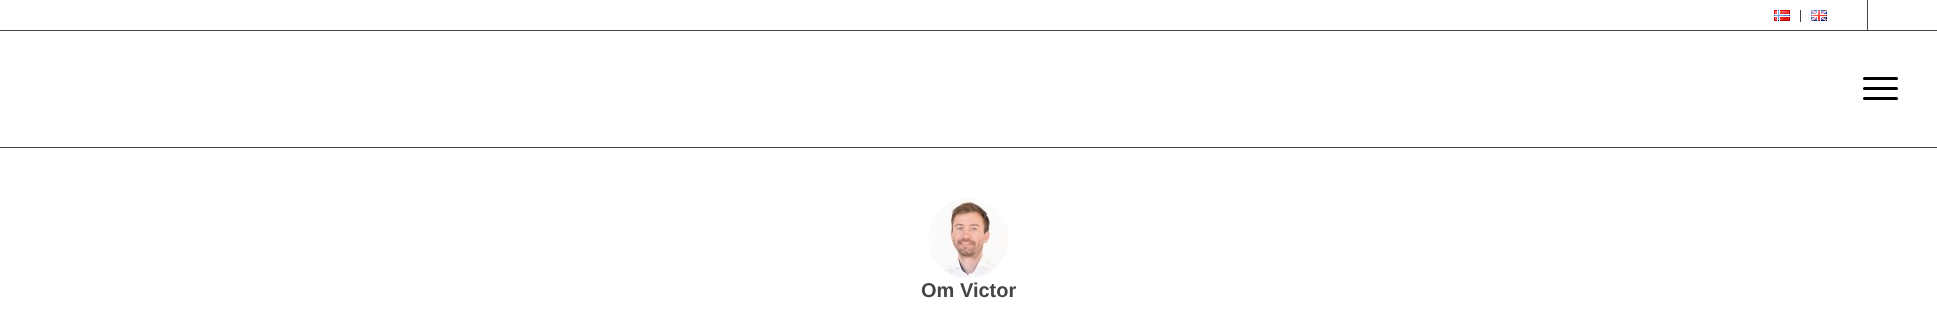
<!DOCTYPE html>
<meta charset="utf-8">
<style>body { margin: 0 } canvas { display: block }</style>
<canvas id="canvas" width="1937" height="323"></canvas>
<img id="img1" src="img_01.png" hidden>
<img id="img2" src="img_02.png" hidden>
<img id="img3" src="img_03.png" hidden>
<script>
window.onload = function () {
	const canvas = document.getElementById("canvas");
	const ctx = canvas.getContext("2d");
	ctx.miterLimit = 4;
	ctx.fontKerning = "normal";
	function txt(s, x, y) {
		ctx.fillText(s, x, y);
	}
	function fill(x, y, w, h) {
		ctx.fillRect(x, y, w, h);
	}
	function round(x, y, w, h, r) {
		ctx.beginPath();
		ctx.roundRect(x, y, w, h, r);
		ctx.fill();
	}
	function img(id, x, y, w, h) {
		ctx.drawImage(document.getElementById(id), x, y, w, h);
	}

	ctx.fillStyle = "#FFFFFF";
	fill(0, 0, 1937, 323);
	ctx.fillStyle = "#444444";
	fill(1800, 10, 1, 12);
	img("img1", 1774, 10, 16, 11);
	img("img2", 1811, 10, 16, 11);
	fill(1867, 0, 1, 30);
	fill(0, 30, 1937, 1);
	ctx.fillStyle = "#000000";
	round(1863, 87, 35, 3, 1.5);
	round(1863, 77, 35, 3, 1.5);
	round(1863, 97, 35, 3, 1.5);
	ctx.fillStyle = "#444444";
	fill(0, 147, 1937, 1);
	img("img3", 928, 198, 81, 81);
	ctx.font = "bold 20px Liberation Sans";
	txt("Om Victor", 921, 297);
};
</script>
